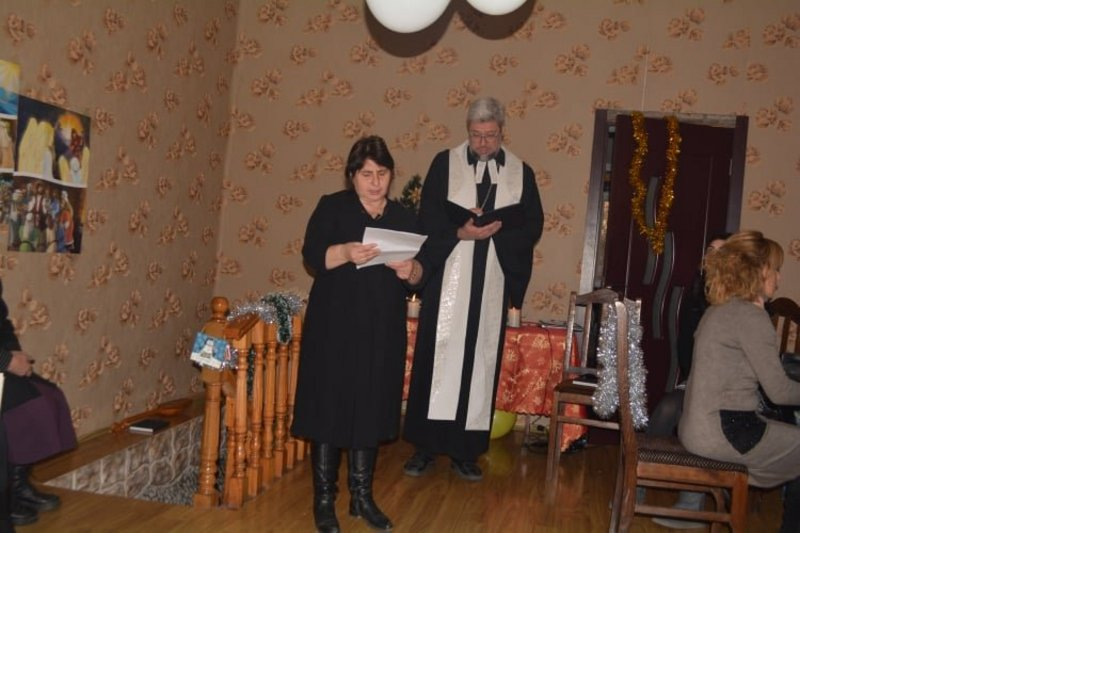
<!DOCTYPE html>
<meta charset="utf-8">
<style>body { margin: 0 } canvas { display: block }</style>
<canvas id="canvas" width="1093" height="685"></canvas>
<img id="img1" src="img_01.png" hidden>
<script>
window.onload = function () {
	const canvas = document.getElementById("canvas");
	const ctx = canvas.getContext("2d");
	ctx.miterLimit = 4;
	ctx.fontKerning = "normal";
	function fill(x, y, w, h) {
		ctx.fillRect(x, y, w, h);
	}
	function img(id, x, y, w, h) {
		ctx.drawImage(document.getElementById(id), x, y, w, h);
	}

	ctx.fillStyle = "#FFFFFF";
	fill(0, 0, 1093, 685);
	img("img1", 0, 0, 800, 533);
};
</script>
